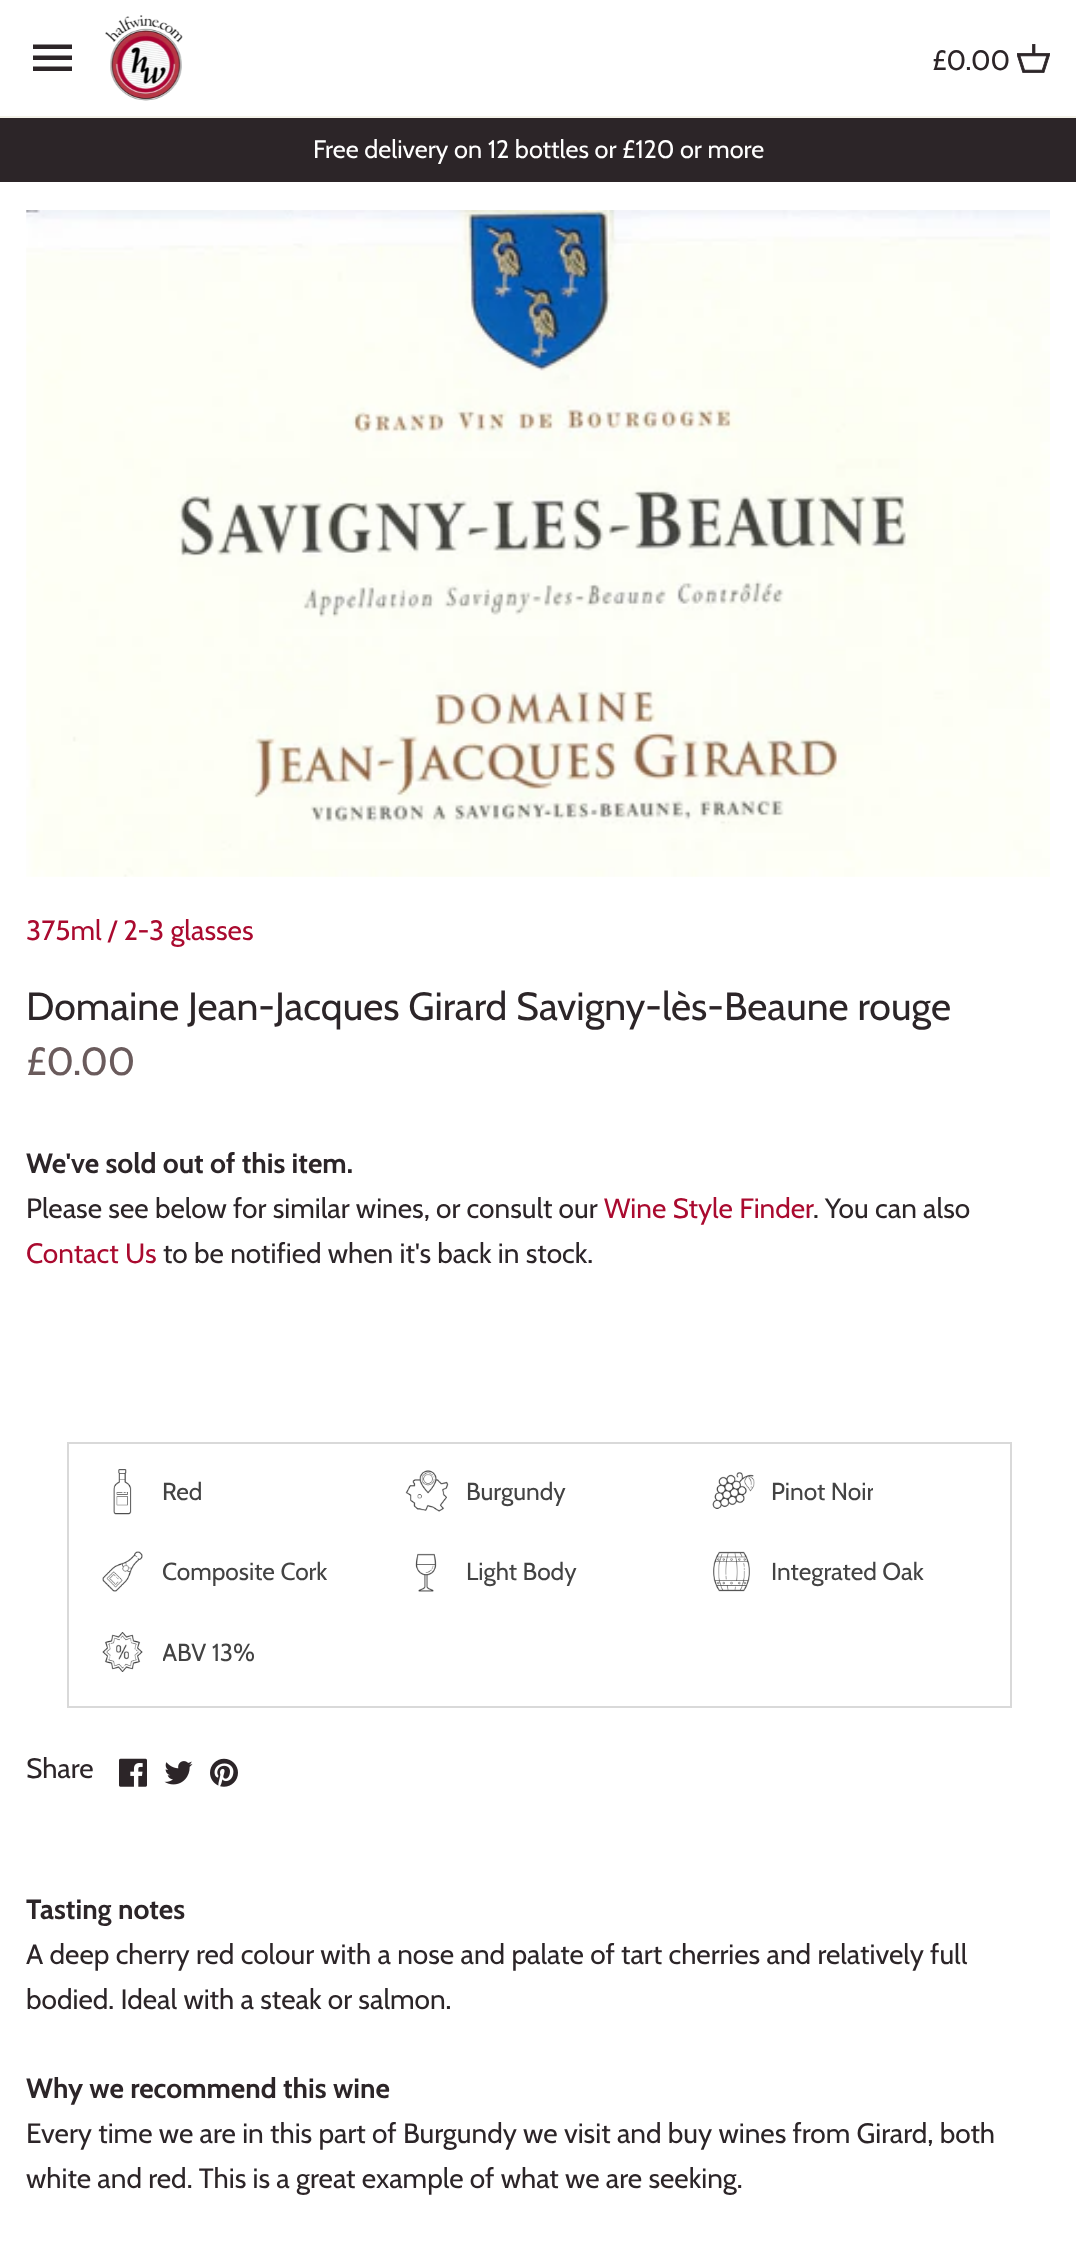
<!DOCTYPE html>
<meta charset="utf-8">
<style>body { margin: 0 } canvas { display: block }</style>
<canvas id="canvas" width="1076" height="2253"></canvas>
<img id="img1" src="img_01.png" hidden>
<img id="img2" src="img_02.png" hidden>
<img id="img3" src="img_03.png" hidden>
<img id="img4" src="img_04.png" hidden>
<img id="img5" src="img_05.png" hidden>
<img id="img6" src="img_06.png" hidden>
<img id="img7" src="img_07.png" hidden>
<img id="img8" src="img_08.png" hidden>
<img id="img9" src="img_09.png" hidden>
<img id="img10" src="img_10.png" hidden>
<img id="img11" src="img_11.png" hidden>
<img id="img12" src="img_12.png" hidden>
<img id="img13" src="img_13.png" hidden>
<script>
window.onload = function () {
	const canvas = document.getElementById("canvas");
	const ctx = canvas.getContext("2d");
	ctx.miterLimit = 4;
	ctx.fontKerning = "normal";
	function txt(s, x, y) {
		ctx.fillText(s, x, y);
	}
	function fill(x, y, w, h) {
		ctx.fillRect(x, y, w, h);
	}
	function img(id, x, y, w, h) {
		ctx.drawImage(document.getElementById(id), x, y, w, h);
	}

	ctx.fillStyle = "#FFFFFF";
	fill(0, 0, 1076, 2253);
	ctx.fillStyle = "#F4F2E9";
	fill(0, 116, 1076, 2);
	ctx.fillStyle = "#2C2528";
	ctx.beginPath();
	ctx.moveTo(33, 71);
	ctx.lineTo(72, 71);
	ctx.lineTo(72, 66.5);
	ctx.lineTo(33, 66.5);
	ctx.closePath();
	ctx.moveTo(33, 60);
	ctx.lineTo(72, 60);
	ctx.lineTo(72, 55.5);
	ctx.lineTo(33, 55.5);
	ctx.closePath();
	ctx.moveTo(33, 44.5);
	ctx.lineTo(33, 49);
	ctx.lineTo(72, 49);
	ctx.lineTo(72, 44.5);
	ctx.closePath();
	ctx.fill();
	img("img1", 105, 15, 78, 86);
	img("img2", 1017, 44, 33, 29);
	fill(0, 118, 1076, 64);
	img("img3", 26, 210, 1024, 667);
	ctx.strokeStyle = "#D9D9D9";
	ctx.lineWidth = 2;
	ctx.strokeRect(68, 1443, 943, 264);
	img("img4", 113, 1469, 19, 46);
	img("img5", 405, 1470, 44, 42);
	img("img6", 712, 1472, 43, 37);
	img("img7", 102, 1551, 41, 41);
	img("img8", 415, 1553, 22, 39);
	img("img9", 713, 1551, 37, 41);
	img("img10", 102, 1632, 41, 40);
	img("img11", 119, 1758, 28, 29);
	img("img12", 164, 1761, 29, 24);
	img("img13", 210, 1758, 28, 29);
	ctx.font = "28px Cabin";
	txt("£0.00", 932, 70);
	ctx.font = "25.25px Cabin";
	ctx.fillStyle = "#FFFFFF";
	txt("Free delivery on 12 bottles or £120 or more", 313, 158);
	ctx.font = "28px Cabin";
	ctx.fillStyle = "#AA0A2F";
	txt("375ml / 2-3 glasses", 26, 940);
	ctx.font = "39.2px Cabin";
	ctx.fillStyle = "#2C2528";
	txt("Domaine Jean-Jacques Girard Savigny-lès-Beaune rouge", 26, 1020);
	ctx.fillStyle = "#6A5B5C";
	txt("£0.00", 26, 1075);
	ctx.font = "bold 28px Cabin";
	ctx.fillStyle = "#2C2528";
	txt("We've sold out of this item.", 26, 1173);
	ctx.font = "28px Cabin";
	txt("Please see below for similar wines, or consult our", 26, 1218);
	ctx.fillStyle = "#AA0A2F";
	txt("Wine Style Finder", 604, 1218);
	ctx.fillStyle = "#2C2528";
	txt(". You can also", 813, 1218);
	ctx.fillStyle = "#AA0A2F";
	txt("Contact Us", 26, 1263);
	ctx.fillStyle = "#2C2528";
	txt("to be notified when it's back in stock.", 163, 1263);
	ctx.font = "24.5px Cabin";
	ctx.fillStyle = "#434343";
	txt("Red", 162, 1500);
	txt("Burgundy", 466, 1500);
	ctx.save();
	ctx.beginPath();
	ctx.rect(772, 1472, 101, 38);
	ctx.clip();
	txt("Pinot Noir", 771, 1500);
	ctx.restore();
	ctx.save();
	ctx.beginPath();
	ctx.rect(163, 1552, 164, 39);
	ctx.clip();
	txt("Composite Cork", 162, 1580);
	ctx.restore();
	txt("Light Body", 466, 1580);
	txt("Integrated Oak", 771, 1580);
	ctx.save();
	ctx.beginPath();
	ctx.rect(163, 1633, 93, 38);
	ctx.clip();
	txt("ABV 13%", 162, 1661);
	ctx.restore();
	ctx.font = "28px Cabin";
	ctx.fillStyle = "#2C2528";
	txt("Share", 26, 1778);
	ctx.font = "bold 28px Cabin";
	txt("Tasting notes", 26, 1919);
	ctx.font = "28px Cabin";
	txt("A deep cherry red colour with a nose and palate of tart cherries and relatively full", 26, 1964);
	txt("bodied. Ideal with a steak or salmon.", 26, 2009);
	ctx.font = "bold 28px Cabin";
	txt("Why we recommend this wine", 26, 2098);
	ctx.font = "28px Cabin";
	txt("Every time we are in this part of Burgundy we visit and buy wines from Girard, both", 26, 2143);
	txt("white and red. This is a great example of what we are seeking.", 26, 2188);
};
</script>
